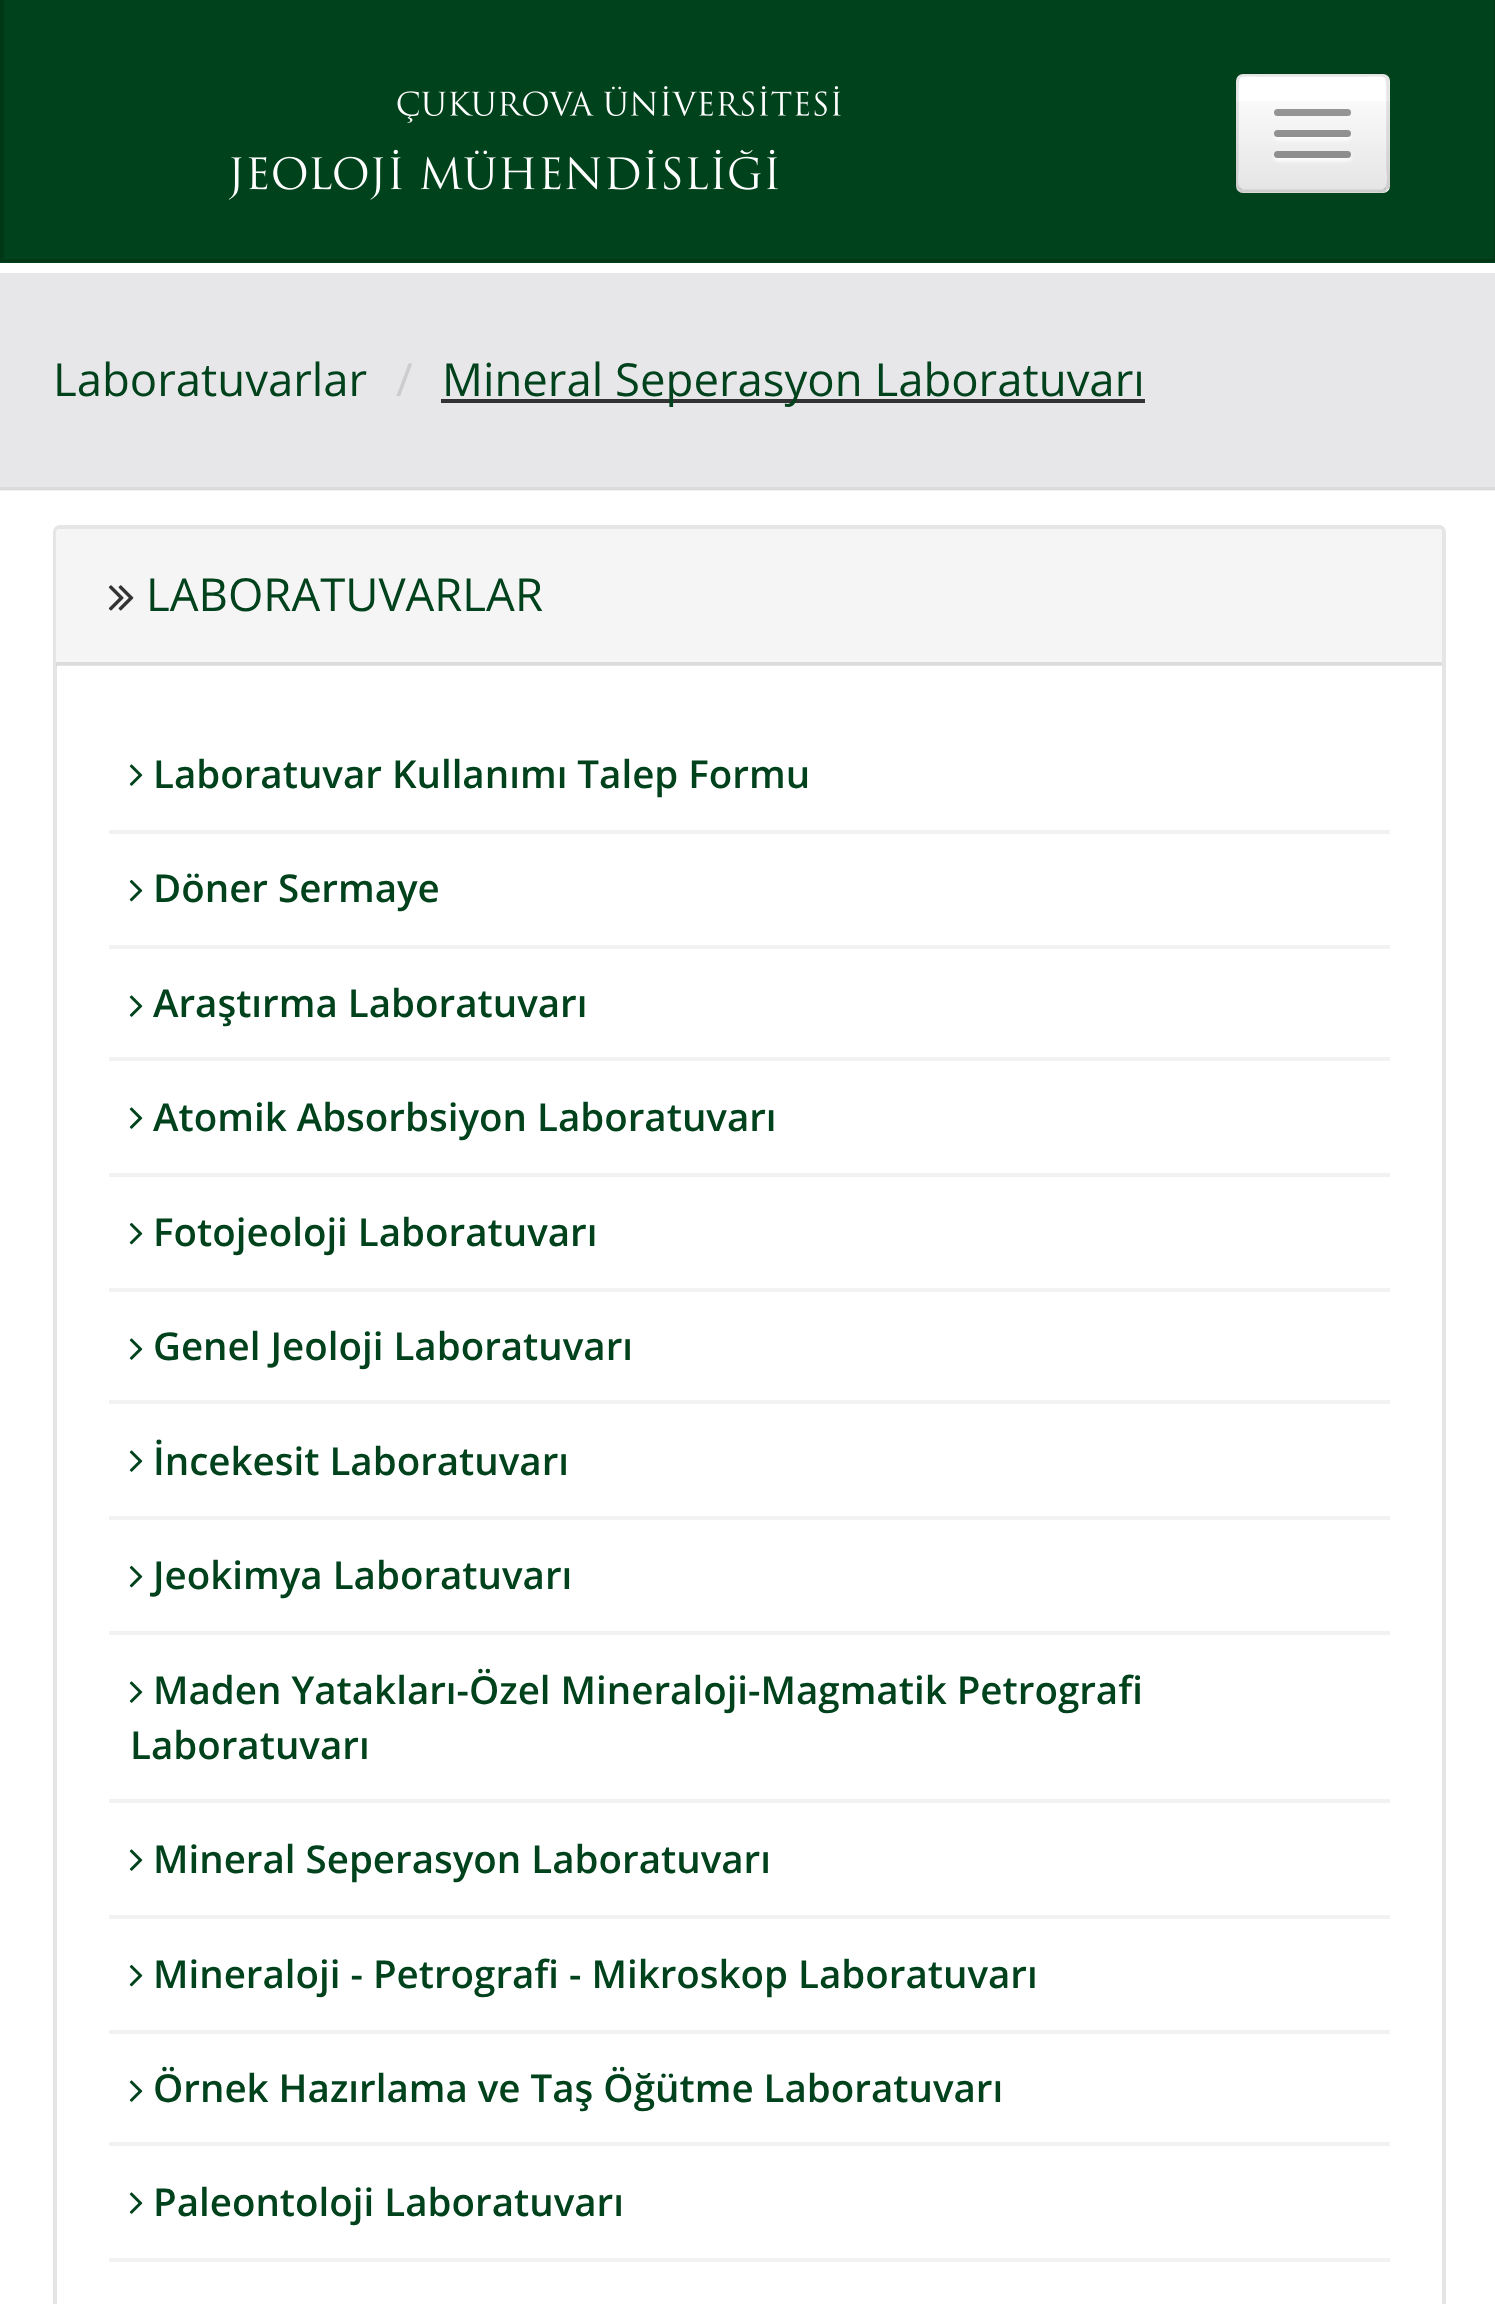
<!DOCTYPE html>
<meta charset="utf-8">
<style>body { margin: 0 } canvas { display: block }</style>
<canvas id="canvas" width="1495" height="2304"></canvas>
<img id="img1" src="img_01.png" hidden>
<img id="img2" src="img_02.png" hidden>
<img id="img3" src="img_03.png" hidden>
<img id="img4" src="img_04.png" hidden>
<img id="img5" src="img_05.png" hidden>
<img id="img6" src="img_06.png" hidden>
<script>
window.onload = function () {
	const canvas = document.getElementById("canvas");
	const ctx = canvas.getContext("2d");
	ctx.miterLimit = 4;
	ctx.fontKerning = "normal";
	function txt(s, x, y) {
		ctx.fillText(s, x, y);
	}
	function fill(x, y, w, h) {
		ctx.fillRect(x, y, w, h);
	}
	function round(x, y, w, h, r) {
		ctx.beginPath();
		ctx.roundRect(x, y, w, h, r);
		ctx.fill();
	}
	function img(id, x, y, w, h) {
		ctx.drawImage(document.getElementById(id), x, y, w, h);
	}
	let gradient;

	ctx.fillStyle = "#FFFFFF";
	fill(0, 0, 1495, 2304);
	ctx.fillStyle = "#F2F2F2";
	fill(0, 490, 1495, 1);
	ctx.fillStyle = "#00421C";
	fill(0, 0, 1495, 263);
	ctx.fillStyle = "#003818";
	ctx.beginPath();
	ctx.moveTo(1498, 0);
	ctx.lineTo(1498, 262);
	ctx.lineTo(1494, 259);
	ctx.lineTo(1494, 0);
	ctx.closePath();
	ctx.fill();
	ctx.fillStyle = "rgba(0, 0, 0, 0.15)";
	ctx.beginPath();
	ctx.moveTo(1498, 262);
	ctx.lineTo(0, 262);
	ctx.lineTo(4, 259);
	ctx.lineTo(1494, 259);
	ctx.closePath();
	ctx.fill();
	ctx.beginPath();
	ctx.moveTo(0, 262);
	ctx.lineTo(0, 0);
	ctx.lineTo(4, 0);
	ctx.lineTo(4, 259);
	ctx.closePath();
	ctx.fill();
	img("img1", 397, 86, 444, 37);
	img("img2", 228, 149, 550, 51);
	ctx.fillStyle = "#FFFFFF";
	round(1236, 74, 154, 119, 7);
	gradient = ctx.createLinearGradient(1313, 77, 1313, 189);
	gradient.addColorStop(0, "rgba(0, 0, 0, 0)");
	gradient.addColorStop(1, "rgba(0, 0, 0, 0.1)");
	ctx.fillStyle = gradient;
	fill(1236, 101, 154, 88);
	ctx.beginPath();
	ctx.moveTo(1386, 189);
	ctx.bezierCurveTo(1385, 190, 1384, 191, 1382.5, 191);
	ctx.lineTo(1242.5, 191);
	ctx.bezierCurveTo(1241, 191, 1240, 190, 1239, 189);
	ctx.strokeStyle = "rgba(0, 0, 0, 0.2)";
	ctx.lineWidth = 3.5;
	ctx.stroke();
	ctx.beginPath();
	ctx.moveTo(1239, 189);
	ctx.bezierCurveTo(1234.5, 185, 1237, 168.5, 1237, 168);
	ctx.lineTo(1237, 98);
	ctx.bezierCurveTo(1237, 69.5, 1234.5, 75, 1266, 75);
	ctx.lineTo(1359, 75);
	ctx.bezierCurveTo(1390.5, 75, 1388, 69.5, 1388, 98);
	ctx.lineTo(1388, 168);
	ctx.bezierCurveTo(1388, 168.5, 1390.5, 185, 1386, 189);
	ctx.strokeStyle = "rgba(0, 0, 0, 0.1)";
	ctx.stroke();
	ctx.fillStyle = "rgba(0, 0, 0, 0.4)";
	round(1274, 109, 77, 7, 3.5);
	ctx.save();
	ctx.beginPath();
	ctx.moveTo(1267, 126);
	ctx.lineTo(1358, 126);
	ctx.lineTo(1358, 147);
	ctx.lineTo(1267, 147);
	ctx.closePath();
	ctx.moveTo(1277.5, 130);
	ctx.lineTo(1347.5, 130);
	ctx.bezierCurveTo(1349.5, 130, 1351, 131.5, 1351, 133.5);
	ctx.bezierCurveTo(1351, 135.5, 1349.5, 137, 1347.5, 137);
	ctx.lineTo(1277.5, 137);
	ctx.bezierCurveTo(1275.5, 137, 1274, 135.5, 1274, 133.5);
	ctx.bezierCurveTo(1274, 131.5, 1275.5, 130, 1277.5, 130);
	ctx.closePath();
	ctx.clip("evenodd");
	ctx.fillStyle = "#FFFFFF";
	ctx.filter = "blur(2px)";
	ctx.beginPath();
	ctx.roundRect(1274, 133, 77, 7, 3.5);
	ctx.fill();
	ctx.filter = "none";
	ctx.restore();
	round(1274, 130, 77, 7, 3.5);
	ctx.save();
	ctx.beginPath();
	ctx.moveTo(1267, 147);
	ctx.lineTo(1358, 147);
	ctx.lineTo(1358, 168);
	ctx.lineTo(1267, 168);
	ctx.closePath();
	ctx.moveTo(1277.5, 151);
	ctx.lineTo(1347.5, 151);
	ctx.bezierCurveTo(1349.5, 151, 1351, 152.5, 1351, 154.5);
	ctx.bezierCurveTo(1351, 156.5, 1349.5, 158, 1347.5, 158);
	ctx.lineTo(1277.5, 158);
	ctx.bezierCurveTo(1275.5, 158, 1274, 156.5, 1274, 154.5);
	ctx.bezierCurveTo(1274, 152.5, 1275.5, 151, 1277.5, 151);
	ctx.closePath();
	ctx.clip("evenodd");
	ctx.fillStyle = "#FFFFFF";
	ctx.filter = "blur(2px)";
	ctx.beginPath();
	ctx.roundRect(1274, 154, 77, 7, 3.5);
	ctx.fill();
	ctx.filter = "none";
	ctx.restore();
	round(1274, 151, 77, 7, 3.5);
	ctx.fillStyle = "#E7E7E9";
	fill(0, 273, 1495, 214);
	ctx.fillStyle = "#DBDBDD";
	fill(0, 487, 1495, 3);
	ctx.fillStyle = "#333333";
	fill(441, 399, 704, 4);
	ctx.beginPath();
	ctx.roundRect(55, 527, 1389, 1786, 5);
	ctx.strokeStyle = "#E5E5E5";
	ctx.lineWidth = 4;
	ctx.stroke();
	ctx.fillStyle = "#F5F5F5";
	ctx.beginPath();
	ctx.roundRect(56, 529, 1386, 136, [4, 4, 0, 0]);
	ctx.fill();
	ctx.fillStyle = "rgba(0, 0, 0, 0.1)";
	fill(56, 662, 1386, 4);
	img("img3", 108, 585, 26, 26);
	ctx.fillStyle = "#F2F2F2";
	fill(109, 830, 1281, 4);
	img("img4", 129, 764, 14, 22);
	fill(109, 945, 1281, 4);
	img("img5", 129, 880, 14, 22);
	fill(109, 1057, 1281, 4);
	img("img6", 129, 995, 14, 22);
	fill(109, 1173, 1281, 4);
	img("img4", 129, 1107, 14, 22);
	fill(109, 1288, 1281, 4);
	img("img5", 129, 1223, 14, 22);
	fill(109, 1400, 1281, 4);
	img("img4", 129, 1338, 14, 22);
	fill(109, 1516, 1281, 4);
	img("img4", 129, 1450, 14, 22);
	fill(109, 1631, 1281, 4);
	img("img5", 129, 1566, 14, 22);
	fill(109, 1799, 1281, 4);
	img("img4", 129, 1681, 14, 22);
	fill(109, 1915, 1281, 4);
	img("img4", 129, 1849, 14, 22);
	fill(109, 2030, 1281, 4);
	img("img5", 129, 1965, 14, 22);
	fill(109, 2142, 1281, 4);
	img("img4", 129, 2080, 14, 22);
	fill(109, 2258, 1281, 4);
	img("img4", 129, 2192, 14, 22);
	ctx.font = "45.5px Open Sans";
	ctx.fillStyle = "#00421C";
	txt("Laboratuvarlar", 53, 396);
	ctx.fillStyle = "#CCCCCC";
	txt("/", 396, 396);
	ctx.fillStyle = "#00421C";
	txt("Mineral Seperasyon Laboratuvarı", 442, 396);
	txt("LABORATUVARLAR", 146, 611);
	ctx.font = "600 38.5px Open Sans";
	txt("Laboratuvar Kullanımı Talep Formu", 153, 788);
	txt("Döner Sermaye", 153, 902);
	txt("Araştırma Laboratuvarı", 153, 1017);
	txt("Atomik Absorbsiyon Laboratuvarı", 153, 1131);
	txt("Fotojeoloji Laboratuvarı", 153, 1246);
	txt("Genel Jeoloji Laboratuvarı", 153, 1360);
	txt("İncekesit Laboratuvarı", 153, 1475);
	txt("Jeokimya Laboratuvarı", 153, 1589);
	txt("Maden Yatakları-Özel Mineraloji-Magmatik Petrografi", 153, 1704);
	txt("Laboratuvarı", 130, 1759);
	txt("Mineral Seperasyon Laboratuvarı", 153, 1873);
	txt("Mineraloji - Petrografi - Mikroskop Laboratuvarı", 153, 1988);
	txt("Örnek Hazırlama ve Taş Öğütme Laboratuvarı", 153, 2102);
	txt("Paleontoloji Laboratuvarı", 153, 2216);
};
</script>
